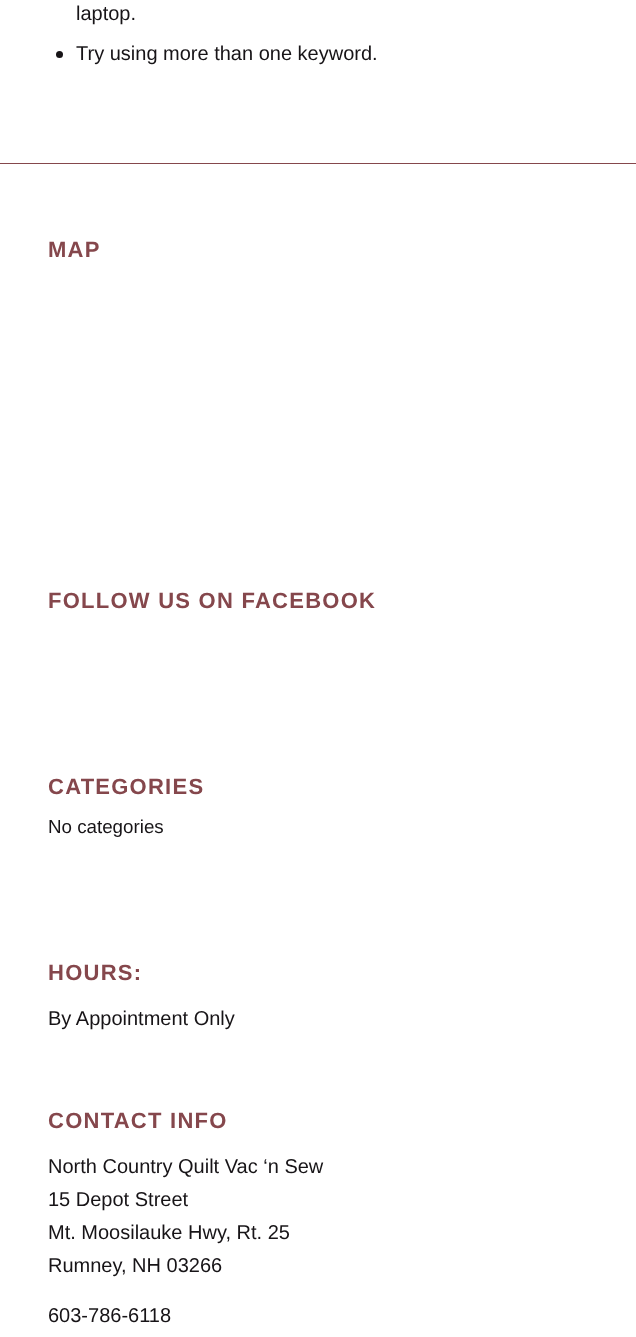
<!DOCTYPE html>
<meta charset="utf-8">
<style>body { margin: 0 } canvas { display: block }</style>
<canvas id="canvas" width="636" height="1337"></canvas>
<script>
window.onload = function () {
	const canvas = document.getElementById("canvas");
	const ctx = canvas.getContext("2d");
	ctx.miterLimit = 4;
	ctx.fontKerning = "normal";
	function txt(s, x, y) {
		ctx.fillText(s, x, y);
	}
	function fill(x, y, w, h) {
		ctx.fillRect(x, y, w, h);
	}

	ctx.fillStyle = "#FFFFFF";
	fill(0, 0, 636, 1337);
	ctx.fillStyle = "#171417";
	ctx.beginPath();
	ctx.arc(59.5, 54.5, 3.5, 0, Math.PI * 2);
	ctx.fill();
	ctx.fillStyle = "#85474C";
	fill(0, 163, 636, 1);
	ctx.font = "20px Liberation Sans";
	ctx.fillStyle = "#171417";
	txt("laptop.", 76, 20);
	txt("Try using more than one keyword.", 76, 60);
	ctx.letterSpacing = "1.25px";
	ctx.font = "bold 22px Liberation Sans";
	ctx.fillStyle = "#85474C";
	txt("MAP", 48, 257);
	txt("FOLLOW US ON FACEBOOK", 48, 608);
	txt("CATEGORIES", 48, 794);
	ctx.letterSpacing = "0px";
	ctx.font = "18.75px Liberation Sans";
	ctx.fillStyle = "#171417";
	txt("No categories", 48, 833);
	ctx.letterSpacing = "1.25px";
	ctx.font = "bold 22px Liberation Sans";
	ctx.fillStyle = "#85474C";
	txt("HOURS:", 48, 980);
	ctx.letterSpacing = "0px";
	ctx.font = "20px Liberation Sans";
	ctx.fillStyle = "#171417";
	txt("By Appointment Only", 48, 1025);
	ctx.letterSpacing = "1.25px";
	ctx.font = "bold 22px Liberation Sans";
	ctx.fillStyle = "#85474C";
	txt("CONTACT INFO", 48, 1128);
	ctx.letterSpacing = "0px";
	ctx.font = "20px Liberation Sans";
	ctx.fillStyle = "#171417";
	txt("North Country Quilt Vac ‘n Sew", 48, 1173);
	txt("15 Depot Street", 48, 1206);
	txt("Mt. Moosilauke Hwy, Rt. 25", 48, 1239);
	txt("Rumney, NH 03266", 48, 1272);
	txt("603-786-6118", 48, 1322);
};
</script>
